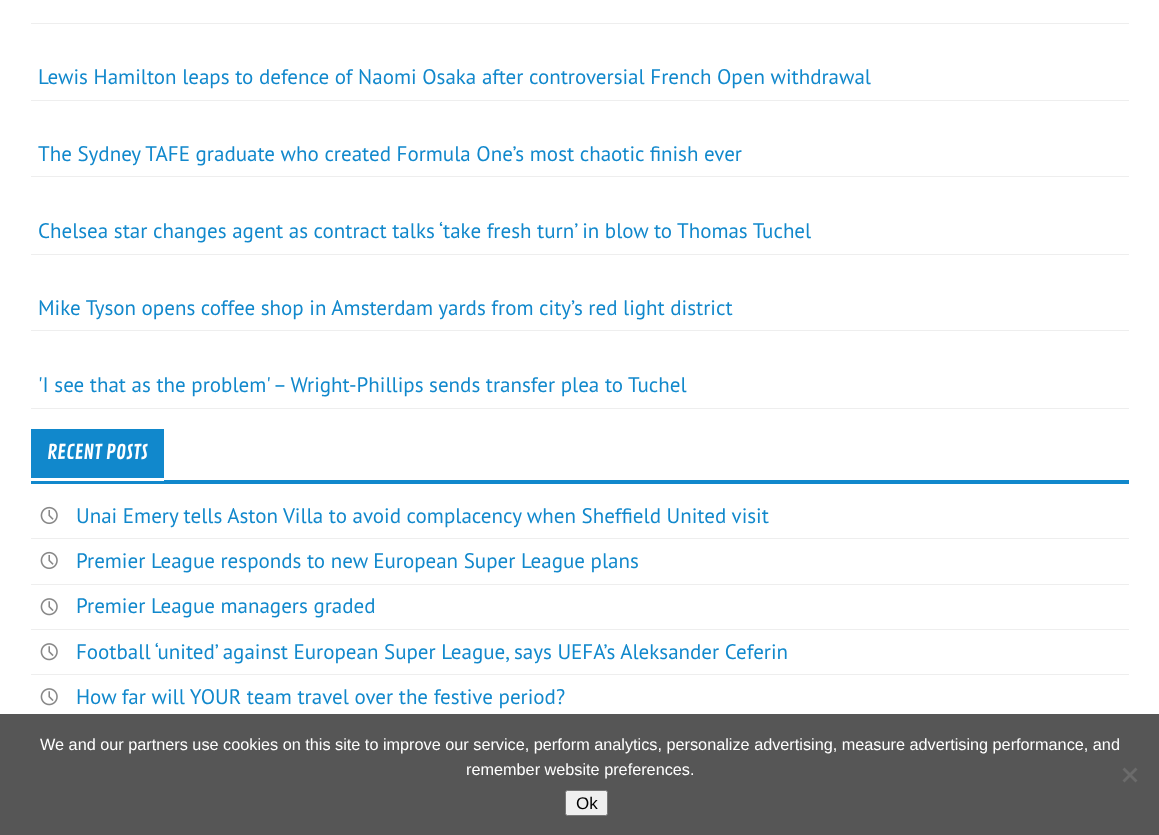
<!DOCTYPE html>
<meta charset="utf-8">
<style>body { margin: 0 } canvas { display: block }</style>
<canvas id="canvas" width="1159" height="835"></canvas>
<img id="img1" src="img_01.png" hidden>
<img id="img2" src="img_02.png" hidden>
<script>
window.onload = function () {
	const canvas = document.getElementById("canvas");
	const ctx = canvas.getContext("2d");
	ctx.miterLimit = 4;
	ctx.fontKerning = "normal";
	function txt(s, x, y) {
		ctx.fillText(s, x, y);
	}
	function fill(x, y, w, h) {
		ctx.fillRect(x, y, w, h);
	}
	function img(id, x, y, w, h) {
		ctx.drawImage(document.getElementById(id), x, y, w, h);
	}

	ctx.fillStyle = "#FFFFFF";
	fill(0, 0, 1159, 835);
	ctx.fillStyle = "#EEEEEE";
	fill(31, 23, 1098, 1);
	fill(31, 100, 1098, 1);
	fill(31, 176, 1098, 1);
	fill(31, 254, 1098, 1);
	fill(31, 330, 1098, 1);
	fill(31, 408, 1098, 1);
	ctx.fillStyle = "#1188CC";
	fill(31, 480, 1098, 4);
	fill(31, 429, 133, 49);
	ctx.fillStyle = "#FFFFFF";
	fill(31, 480, 133, 1);
	ctx.fillStyle = "#EEEEEE";
	fill(31, 538, 1098, 1);
	img("img1", 40, 506, 18, 19);
	fill(31, 584, 1098, 1);
	img("img1", 40, 551, 18, 19);
	fill(31, 629, 1098, 1);
	img("img2", 40, 598, 18, 18);
	fill(31, 674, 1098, 1);
	img("img2", 40, 643, 18, 18);
	img("img2", 40, 688, 18, 18);
	ctx.fillStyle = "#565656";
	fill(0, 714, 1159, 121);
	ctx.fillStyle = "#6B6B6B";
	ctx.beginPath();
	ctx.moveTo(1135.5, 767.5);
	ctx.lineTo(1137.5, 769.5);
	ctx.lineTo(1124.5, 782.5);
	ctx.lineTo(1122.5, 780.5);
	ctx.closePath();
	ctx.fill();
	ctx.beginPath();
	ctx.moveTo(1122.5, 769.5);
	ctx.lineTo(1124.5, 767.5);
	ctx.lineTo(1137.5, 780.5);
	ctx.lineTo(1135.5, 782.5);
	ctx.closePath();
	ctx.fill();
	ctx.fillStyle = "#EFEFEF";
	ctx.beginPath();
	ctx.roundRect(565.5, 790.5, 42, 25, 2);
	ctx.fill();
	ctx.strokeStyle = "#767676";
	ctx.stroke();
	ctx.font = "21px PT Sans";
	ctx.fillStyle = "#1188CC";
	txt("Lewis Hamilton leaps to defence of Naomi Osaka after controversial French Open withdrawal", 38, 84);
	txt("The Sydney TAFE graduate who created Formula One’s most chaotic finish ever", 38, 161);
	txt("Chelsea star changes agent as contract talks ‘take fresh turn’ in blow to Thomas Tuchel", 38, 238);
	txt("Mike Tyson opens coffee shop in Amsterdam yards from city’s red light district", 38, 315);
	txt("'I see that as the problem' – Wright-Phillips sends transfer plea to Tuchel", 38, 392);
	ctx.font = "20px Contrail One";
	ctx.fillStyle = "#FFFFFF";
	txt("RECENT POSTS", 47, 459);
	ctx.font = "21px PT Sans";
	ctx.fillStyle = "#1188CC";
	txt("Unai Emery tells Aston Villa to avoid complacency when Sheffield United visit", 76, 523);
	txt("Premier League responds to new European Super League plans", 76, 568);
	txt("Premier League managers graded", 76, 613);
	txt("Football ‘united’ against European Super League, says UEFA’s Aleksander Ceferin", 76, 659);
	txt("How far will YOUR team travel over the festive period?", 76, 704);
	ctx.font = "16.25px Liberation Sans";
	ctx.fillStyle = "#FFFFFF";
	txt("We and our partners use cookies on this site to improve our service, perform analytics, personalize advertising, measure advertising performance, and", 40, 750);
	txt("remember website preferences.", 466, 775);
	ctx.font = "17px Liberation Sans";
	ctx.fillStyle = "#000000";
	txt("Ok", 576, 809);
};
</script>
